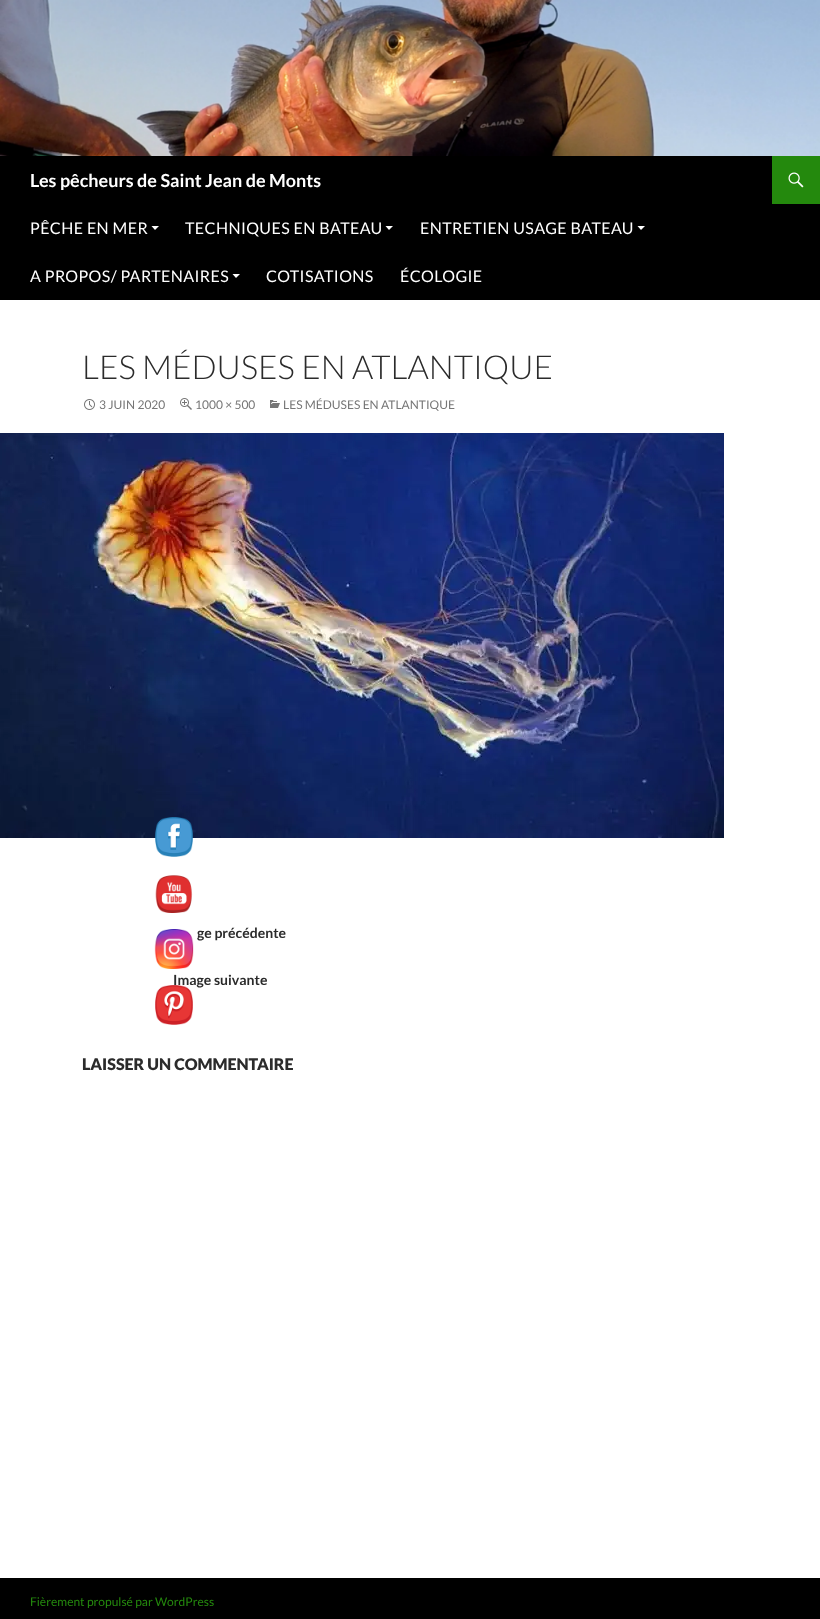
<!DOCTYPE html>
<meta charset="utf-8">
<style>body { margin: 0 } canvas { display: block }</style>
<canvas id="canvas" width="820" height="1619"></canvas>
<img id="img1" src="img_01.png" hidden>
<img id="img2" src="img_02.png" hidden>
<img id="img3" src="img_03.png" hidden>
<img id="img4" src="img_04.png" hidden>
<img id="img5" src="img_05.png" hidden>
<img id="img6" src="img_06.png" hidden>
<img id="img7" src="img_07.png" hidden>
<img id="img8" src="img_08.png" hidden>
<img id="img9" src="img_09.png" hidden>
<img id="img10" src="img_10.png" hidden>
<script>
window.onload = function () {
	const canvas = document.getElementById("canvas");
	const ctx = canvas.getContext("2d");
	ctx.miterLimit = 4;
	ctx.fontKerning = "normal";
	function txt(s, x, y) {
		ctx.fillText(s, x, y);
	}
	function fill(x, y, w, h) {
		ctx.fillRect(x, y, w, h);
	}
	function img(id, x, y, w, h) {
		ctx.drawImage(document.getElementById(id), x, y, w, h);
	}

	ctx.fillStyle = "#FFFFFF";
	fill(0, 0, 820, 1619);
	img("img1", 0, 0, 820, 156);
	ctx.fillStyle = "#000000";
	fill(0, 156, 820, 144);
	ctx.fillStyle = "#24890D";
	fill(772, 156, 48, 48);
	img("img2", 788, 172, 16, 16);
	ctx.fillStyle = "#FFFFFF";
	ctx.beginPath();
	ctx.moveTo(151.5, 226);
	ctx.lineTo(159, 226);
	ctx.lineTo(155, 230);
	ctx.closePath();
	ctx.fill();
	ctx.beginPath();
	ctx.moveTo(385.5, 226);
	ctx.lineTo(393, 226);
	ctx.lineTo(389, 230);
	ctx.closePath();
	ctx.fill();
	ctx.beginPath();
	ctx.moveTo(637.5, 226);
	ctx.lineTo(645, 226);
	ctx.lineTo(641, 230);
	ctx.closePath();
	ctx.fill();
	ctx.beginPath();
	ctx.moveTo(232.5, 274);
	ctx.lineTo(240, 274);
	ctx.lineTo(236, 278);
	ctx.closePath();
	ctx.fill();
	img("img3", 84, 399, 11, 11);
	img("img4", 180, 398, 12, 12);
	img("img5", 270, 400, 10, 8);
	img("img6", 0, 433, 724, 405);
	ctx.fillStyle = "#000000";
	fill(0, 1578, 820, 41);
	img("img7", 155, 817, 38, 40);
	img("img8", 155, 875, 38, 38);
	img("img9", 154, 929, 40, 40);
	ctx.font = "bold 18px Lato";
	ctx.fillStyle = "#FFFFFF";
	txt("Les pêcheurs de Saint Jean de Monts", 30, 187);
	ctx.letterSpacing = "0.4px";
	ctx.font = "16px Lato";
	txt("PÊCHE EN MER", 30, 234);
	txt("TECHNIQUES EN BATEAU", 185, 234);
	txt("ENTRETIEN USAGE BATEAU", 420, 234);
	txt("A PROPOS/ PARTENAIRES", 30, 282);
	txt("COTISATIONS", 266, 282);
	txt("ÉCOLOGIE", 400, 282);
	ctx.letterSpacing = "0px";
	ctx.font = "300 33px Lato";
	ctx.fillStyle = "#2B2B2B";
	txt("LES MÉDUSES EN ATLANTIQUE", 82, 379);
	ctx.font = "12px Lato";
	ctx.fillStyle = "#767676";
	txt("3 JUIN 2020", 99, 409);
	txt("1000 × 500", 195, 409);
	txt("LES MÉDUSES EN ATLANTIQUE", 283, 409);
	ctx.font = "bold 14px Lato";
	ctx.fillStyle = "#2B2B2B";
	txt("ge précédente", 197, 938);
	txt("Image suivante", 173, 985);
	ctx.font = "900 16px Lato";
	txt("LAISSER UN COMMENTAIRE", 82, 1070);
	ctx.font = "12px Lato";
	ctx.fillStyle = "#24890D";
	txt("Fièrement propulsé par WordPress", 30, 1606);
	img("img10", 155, 985, 38, 40);
};
</script>
